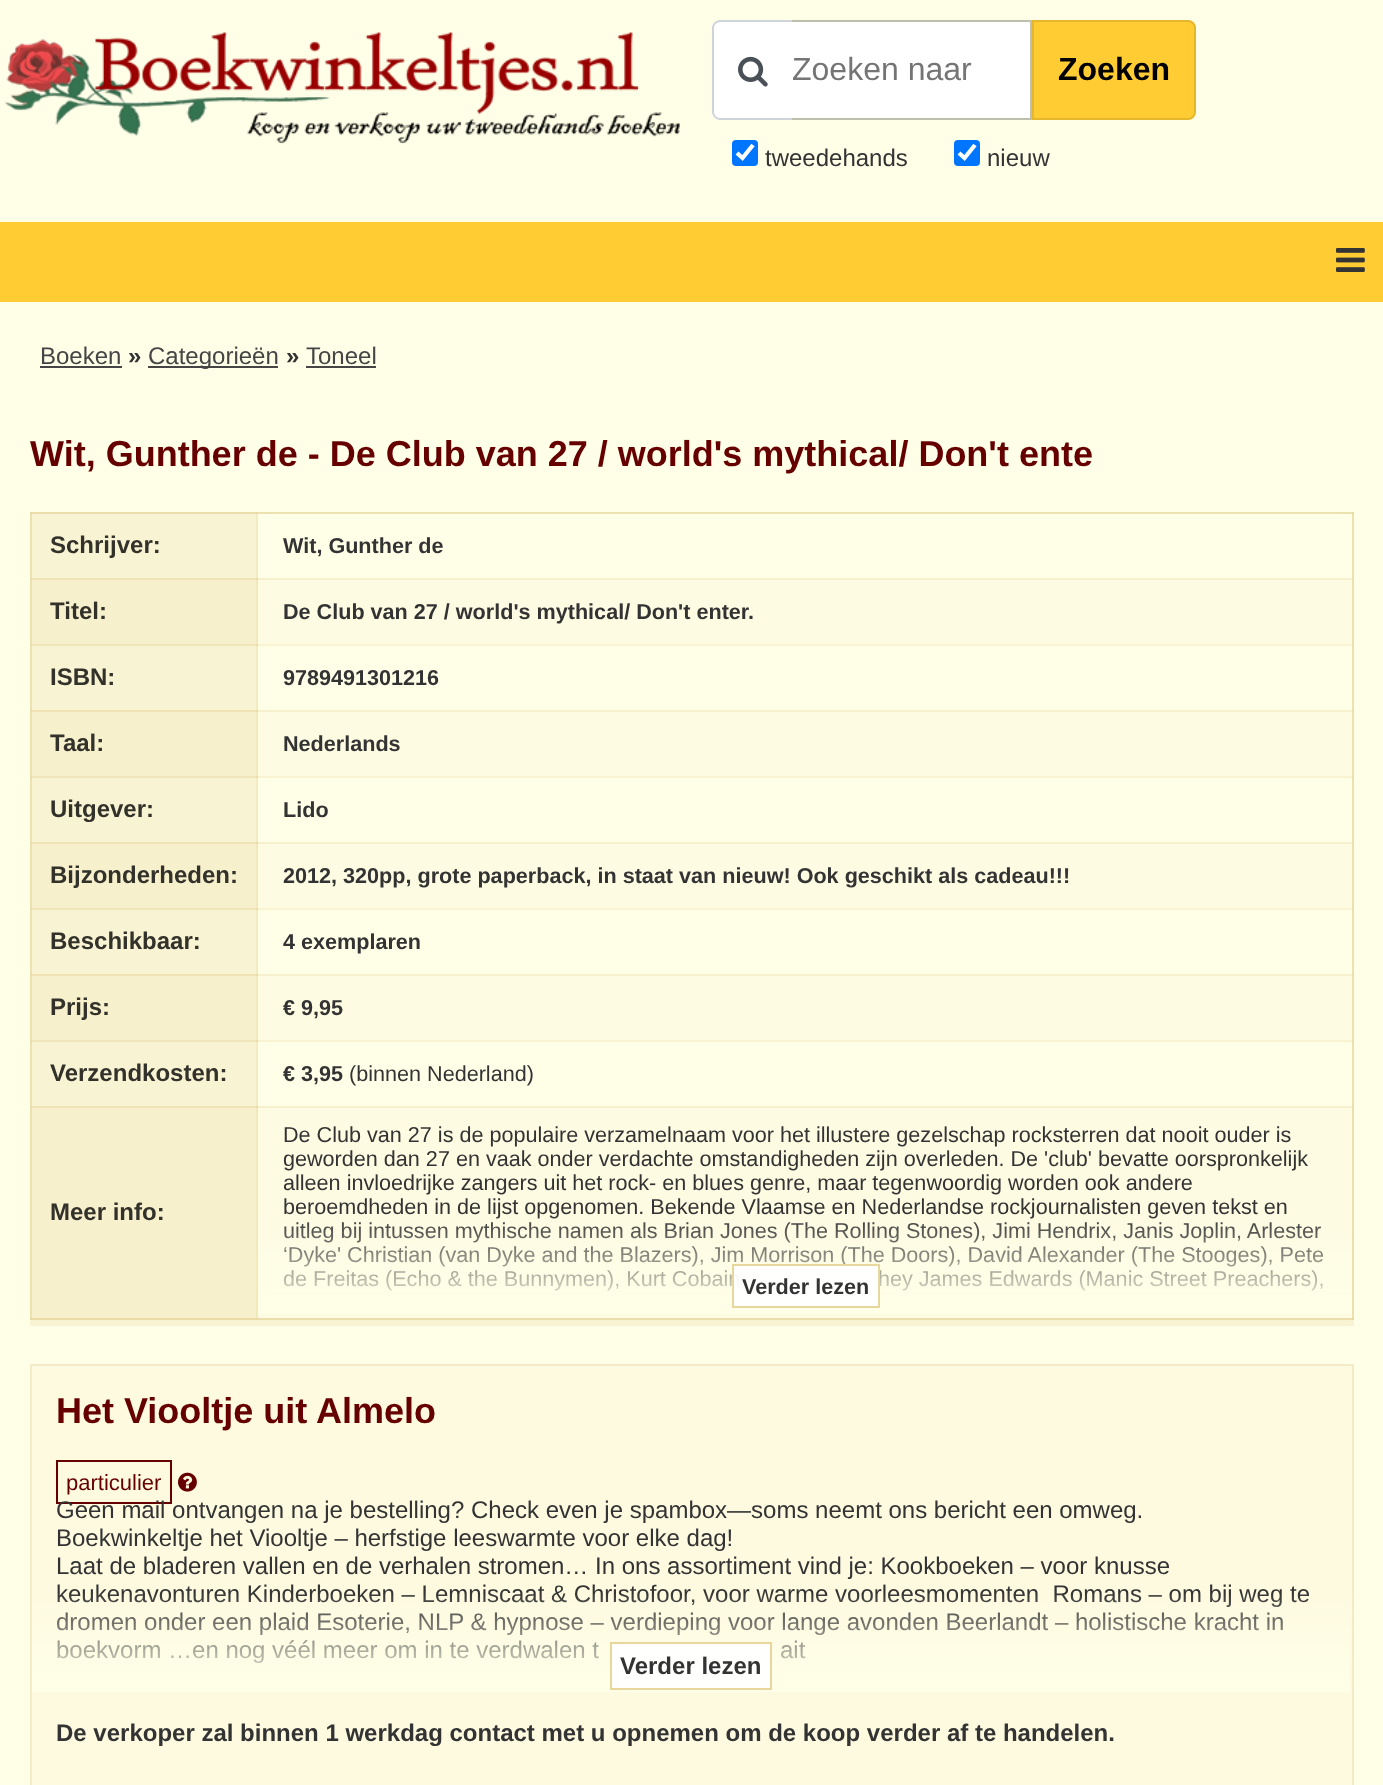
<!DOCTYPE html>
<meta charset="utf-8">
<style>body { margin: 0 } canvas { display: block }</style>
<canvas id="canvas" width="1383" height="1785"></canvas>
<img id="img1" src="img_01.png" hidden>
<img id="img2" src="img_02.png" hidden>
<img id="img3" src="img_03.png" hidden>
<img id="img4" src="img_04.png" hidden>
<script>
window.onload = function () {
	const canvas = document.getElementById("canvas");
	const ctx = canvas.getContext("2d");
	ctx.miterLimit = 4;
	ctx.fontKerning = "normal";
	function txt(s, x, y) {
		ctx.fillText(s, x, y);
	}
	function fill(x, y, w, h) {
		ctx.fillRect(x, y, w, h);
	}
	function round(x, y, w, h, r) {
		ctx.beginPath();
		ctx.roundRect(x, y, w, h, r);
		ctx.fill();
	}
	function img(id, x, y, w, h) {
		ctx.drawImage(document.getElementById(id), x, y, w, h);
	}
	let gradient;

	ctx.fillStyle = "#FFFFE8";
	fill(0, 0, 1383, 1785);
	ctx.fillStyle = "#F8F3D1";
	fill(256, 644, 1098, 2);
	fill(256, 776, 1098, 2);
	fill(256, 908, 1098, 2);
	fill(256, 1040, 1098, 2);
	ctx.fillStyle = "#EEE1B0";
	fill(30, 512, 2, 808);
	ctx.fillStyle = "#EBDCA7";
	fill(30, 578, 2, 2);
	fill(30, 644, 2, 2);
	fill(30, 710, 2, 2);
	fill(30, 776, 2, 2);
	fill(30, 842, 2, 2);
	fill(30, 908, 2, 2);
	fill(30, 974, 2, 2);
	fill(30, 1040, 2, 2);
	fill(30, 1106, 2, 2);
	fill(30, 1318, 228, 2);
	ctx.fillStyle = "#ECDEAA";
	fill(256, 1318, 1098, 2);
	ctx.fillStyle = "#EADAA2";
	fill(256, 1318, 2, 2);
	ctx.fillStyle = "#E9D9A0";
	fill(30, 1318, 2, 2);
	ctx.fillStyle = "#EEE1B0";
	fill(1352, 512, 2, 594);
	ctx.fillStyle = "#ECDEAA";
	fill(1352, 644, 2, 2);
	fill(1352, 776, 2, 2);
	fill(1352, 908, 2, 2);
	fill(1352, 1040, 2, 2);
	ctx.fillStyle = "#E9D9A1";
	fill(1352, 1318, 2, 2);
	ctx.fillStyle = "#EEE1B0";
	fill(258, 512, 1096, 2);
	ctx.fillStyle = "#EADAA2";
	fill(30, 512, 2, 2);
	fill(1352, 512, 2, 2);
	img("img1", 4, 32, 676, 112);
	ctx.fillStyle = "#FFFFFF";
	ctx.beginPath();
	ctx.roundRect(712, 20, 80, 100, [8, 0, 0, 8]);
	ctx.fill();
	ctx.fillStyle = "#CED4DA";
	ctx.beginPath();
	ctx.moveTo(720, 20);
	ctx.lineTo(792, 20);
	ctx.lineTo(792, 120);
	ctx.lineTo(720, 120);
	ctx.bezierCurveTo(716, 120, 712, 116, 712, 112);
	ctx.lineTo(712, 28);
	ctx.bezierCurveTo(712, 24, 716, 20, 720, 20);
	ctx.closePath();
	ctx.moveTo(720, 22);
	ctx.lineTo(792, 22);
	ctx.lineTo(792, 118);
	ctx.lineTo(720, 118);
	ctx.bezierCurveTo(717, 118, 714, 115, 714, 112);
	ctx.lineTo(714, 28);
	ctx.bezierCurveTo(714, 25, 717, 22, 720, 22);
	ctx.closePath();
	ctx.fill("evenodd");
	img("img2", 738, 56, 30, 31);
	ctx.fillStyle = "#FFFFFF";
	fill(792, 22, 238, 96);
	ctx.fillStyle = "#BFBFAE";
	ctx.beginPath();
	ctx.moveTo(792, 20);
	ctx.lineTo(1032, 20);
	ctx.lineTo(1030, 22);
	ctx.lineTo(792, 22);
	ctx.closePath();
	ctx.fill();
	ctx.fillStyle = "rgba(0, 0, 0, 0.25)";
	ctx.beginPath();
	ctx.moveTo(1032, 20);
	ctx.lineTo(1032, 120);
	ctx.lineTo(1030, 118);
	ctx.lineTo(1030, 22);
	ctx.closePath();
	ctx.fill();
	ctx.beginPath();
	ctx.moveTo(1032, 120);
	ctx.lineTo(792, 120);
	ctx.lineTo(792, 118);
	ctx.lineTo(1030, 118);
	ctx.closePath();
	ctx.fill();
	ctx.fillStyle = "#FFCC33";
	ctx.beginPath();
	ctx.roundRect(1032, 20, 164, 100, [0, 8, 8, 0]);
	ctx.fill();
	ctx.beginPath();
	ctx.roundRect(1033, 21, 162, 98, [0, 7, 7, 0]);
	ctx.strokeStyle = "rgba(0, 0, 0, 0.1)";
	ctx.lineWidth = 2;
	ctx.stroke();
	ctx.fillStyle = "#0075FF";
	round(732, 140, 26, 26, 4);
	ctx.beginPath();
	ctx.moveTo(737, 153);
	ctx.lineTo(742.5, 158);
	ctx.lineTo(753, 145);
	ctx.strokeStyle = "#FFFFFF";
	ctx.lineWidth = 4.2;
	ctx.stroke();
	round(954, 140, 26, 26, 4);
	ctx.beginPath();
	ctx.moveTo(959, 153);
	ctx.lineTo(964.5, 158);
	ctx.lineTo(975, 145);
	ctx.stroke();
	ctx.fillStyle = "#FFCC33";
	fill(0, 222, 1383, 80);
	img("img3", 1336, 248, 29, 24);
	ctx.fillStyle = "#454545";
	fill(40, 366, 82, 2);
	fill(148, 366, 130, 2);
	fill(306, 366, 70, 2);
	ctx.fillStyle = "#F8F3D2";
	fill(30, 1320, 1324, 6);
	fill(32, 514, 224, 64);
	ctx.fillStyle = "#F3EBC2";
	fill(256, 512, 2, 66);
	ctx.fillStyle = "#ECDEAA";
	fill(32, 512, 226, 2);
	ctx.fillStyle = "#EBDCA6";
	fill(256, 512, 2, 2);
	ctx.fillStyle = "#FDFBE2";
	fill(258, 580, 1094, 64);
	ctx.fillStyle = "#F7F0CD";
	fill(256, 578, 1098, 2);
	ctx.fillStyle = "#EDE0AE";
	fill(1352, 578, 2, 2);
	ctx.fillStyle = "#EBDDA9";
	fill(1352, 578, 2, 2);
	ctx.fillStyle = "#F7F0CD";
	fill(32, 580, 224, 64);
	ctx.fillStyle = "#F0E4B5";
	fill(32, 578, 226, 2);
	ctx.fillStyle = "#F2E9BF";
	fill(256, 578, 2, 66);
	ctx.fillStyle = "#EBDCA6";
	fill(256, 578, 2, 2);
	ctx.fillStyle = "#F8F3D2";
	fill(32, 646, 224, 64);
	ctx.fillStyle = "#F0E5B8";
	fill(32, 644, 226, 2);
	ctx.fillStyle = "#F3EBC2";
	fill(256, 644, 2, 66);
	ctx.fillStyle = "#EBDCA6";
	fill(256, 644, 2, 2);
	ctx.fillStyle = "#FDFBE2";
	fill(258, 712, 1094, 64);
	ctx.fillStyle = "#F7F0CD";
	fill(256, 710, 1098, 2);
	ctx.fillStyle = "#EDE0AE";
	fill(1352, 710, 2, 2);
	ctx.fillStyle = "#EBDDA9";
	fill(1352, 710, 2, 2);
	ctx.fillStyle = "#F7F0CD";
	fill(32, 712, 224, 64);
	ctx.fillStyle = "#F0E4B5";
	fill(32, 710, 226, 2);
	ctx.fillStyle = "#F2E9BF";
	fill(256, 710, 2, 66);
	ctx.fillStyle = "#EBDCA6";
	fill(256, 710, 2, 2);
	ctx.fillStyle = "#F8F3D2";
	fill(32, 778, 224, 64);
	ctx.fillStyle = "#F0E5B8";
	fill(32, 776, 226, 2);
	ctx.fillStyle = "#F3EBC2";
	fill(256, 776, 2, 66);
	ctx.fillStyle = "#EBDCA6";
	fill(256, 776, 2, 2);
	ctx.fillStyle = "#FDFBE2";
	fill(258, 844, 1094, 64);
	ctx.fillStyle = "#F7F0CD";
	fill(256, 842, 1098, 2);
	ctx.fillStyle = "#EDE0AE";
	fill(1352, 842, 2, 2);
	ctx.fillStyle = "#EBDDA9";
	fill(1352, 842, 2, 2);
	ctx.fillStyle = "#F7F0CD";
	fill(32, 844, 224, 64);
	ctx.fillStyle = "#F0E4B5";
	fill(32, 842, 226, 2);
	ctx.fillStyle = "#F2E9BF";
	fill(256, 842, 2, 66);
	ctx.fillStyle = "#EBDCA6";
	fill(256, 842, 2, 2);
	ctx.fillStyle = "#F8F3D2";
	fill(32, 910, 224, 64);
	ctx.fillStyle = "#F0E5B8";
	fill(32, 908, 226, 2);
	ctx.fillStyle = "#F3EBC2";
	fill(256, 908, 2, 66);
	ctx.fillStyle = "#EBDCA6";
	fill(256, 908, 2, 2);
	ctx.fillStyle = "#FDFBE2";
	fill(258, 976, 1094, 64);
	ctx.fillStyle = "#F7F0CD";
	fill(256, 974, 1098, 2);
	ctx.fillStyle = "#EDE0AE";
	fill(1352, 974, 2, 2);
	ctx.fillStyle = "#EBDDA9";
	fill(1352, 974, 2, 2);
	ctx.fillStyle = "#F7F0CD";
	fill(32, 976, 224, 64);
	ctx.fillStyle = "#F0E4B5";
	fill(32, 974, 226, 2);
	ctx.fillStyle = "#F2E9BF";
	fill(256, 974, 2, 66);
	ctx.fillStyle = "#EBDCA6";
	fill(256, 974, 2, 2);
	ctx.fillStyle = "#F8F3D2";
	fill(32, 1042, 224, 64);
	ctx.fillStyle = "#F0E5B8";
	fill(32, 1040, 226, 2);
	ctx.fillStyle = "#F3EBC2";
	fill(256, 1040, 2, 66);
	ctx.fillStyle = "#EBDCA6";
	fill(256, 1040, 2, 2);
	ctx.fillStyle = "#FDFBE2";
	fill(258, 1108, 1094, 210);
	ctx.fillStyle = "#F7F0CD";
	fill(256, 1106, 1098, 2);
	ctx.fillStyle = "#EDE0AE";
	fill(1352, 1106, 2, 212);
	ctx.fillStyle = "#EBDDA9";
	fill(1352, 1106, 2, 2);
	ctx.fillStyle = "#F7F0CD";
	fill(32, 1108, 224, 210);
	ctx.fillStyle = "#F0E4B5";
	fill(32, 1106, 226, 2);
	ctx.fillStyle = "#F2E9BF";
	fill(256, 1106, 2, 212);
	ctx.fillStyle = "#EBDCA6";
	fill(256, 1106, 2, 2);
	ctx.fillStyle = "#FDFAE0";
	ctx.beginPath();
	ctx.rect(31, 1365, 1322, 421);
	ctx.fill();
	ctx.strokeStyle = "#F3EAC8";
	ctx.lineWidth = 2;
	ctx.stroke();
	ctx.strokeStyle = "#660000";
	ctx.strokeRect(57, 1461, 114, 42);
	img("img4", 178, 1472, 19, 20);
	ctx.font = "32px Liberation Sans";
	ctx.fillStyle = "#757575";
	txt("Zoeken naar", 792, 80);
	ctx.font = "bold 32px Liberation Sans";
	ctx.fillStyle = "#000000";
	txt("Zoeken", 1058, 80);
	ctx.font = "24px Liberation Sans";
	ctx.fillStyle = "#333333";
	txt("tweedehands", 765, 166);
	txt("nieuw", 987, 166);
	ctx.fillStyle = "#454545";
	txt("Boeken", 40, 364);
	ctx.font = "bold 24px Liberation Sans";
	ctx.fillStyle = "#333333";
	txt("»", 128, 364);
	ctx.font = "24px Liberation Sans";
	ctx.fillStyle = "#454545";
	txt("Categorieën", 148, 364);
	ctx.font = "bold 24px Liberation Sans";
	ctx.fillStyle = "#333333";
	txt("»", 286, 364);
	ctx.font = "24px Liberation Sans";
	ctx.fillStyle = "#454545";
	txt("Toneel", 306, 364);
	ctx.font = "bold 36px Liberation Sans";
	ctx.fillStyle = "#660000";
	txt("Wit, Gunther de - De Club van 27 / world's mythical/ Don't ente", 30, 466);
	ctx.font = "bold 24px Liberation Sans";
	ctx.fillStyle = "#32312A";
	txt("Schrijver:", 50, 553);
	ctx.font = "bold 21.6px Liberation Sans";
	ctx.fillStyle = "#333333";
	txt("Wit, Gunther de", 283, 553);
	ctx.font = "bold 24px Liberation Sans";
	ctx.fillStyle = "#32312A";
	txt("Titel:", 50, 619);
	ctx.font = "bold 21.6px Liberation Sans";
	ctx.fillStyle = "#333333";
	txt("De Club van 27 / world's mythical/ Don't enter.", 283, 619);
	ctx.font = "bold 24px Liberation Sans";
	ctx.fillStyle = "#32312A";
	txt("ISBN:", 50, 685);
	ctx.font = "bold 21.6px Liberation Sans";
	ctx.fillStyle = "#333333";
	txt("9789491301216", 283, 685);
	ctx.font = "bold 24px Liberation Sans";
	ctx.fillStyle = "#32312A";
	txt("Taal:", 50, 751);
	ctx.font = "bold 21.6px Liberation Sans";
	ctx.fillStyle = "#333333";
	txt("Nederlands", 283, 751);
	ctx.font = "bold 24px Liberation Sans";
	ctx.fillStyle = "#32312A";
	txt("Uitgever:", 50, 817);
	ctx.font = "bold 21.6px Liberation Sans";
	ctx.fillStyle = "#333333";
	txt("Lido", 283, 817);
	ctx.font = "bold 24px Liberation Sans";
	ctx.fillStyle = "#32312A";
	txt("Bijzonderheden:", 50, 883);
	ctx.font = "bold 21.6px Liberation Sans";
	ctx.fillStyle = "#333333";
	txt("2012, 320pp, grote paperback, in staat van nieuw! Ook geschikt als cadeau!!!", 283, 883);
	ctx.font = "bold 24px Liberation Sans";
	ctx.fillStyle = "#32312A";
	txt("Beschikbaar:", 50, 949);
	ctx.font = "bold 21.6px Liberation Sans";
	ctx.fillStyle = "#333333";
	txt("4 exemplaren", 283, 949);
	ctx.font = "bold 24px Liberation Sans";
	ctx.fillStyle = "#32312A";
	txt("Prijs:", 50, 1015);
	ctx.font = "bold 21.6px Liberation Sans";
	ctx.fillStyle = "#333333";
	txt("€ 9,95", 283, 1015);
	ctx.font = "bold 24px Liberation Sans";
	ctx.fillStyle = "#32312A";
	txt("Verzendkosten:", 50, 1081);
	ctx.font = "bold 21.6px Liberation Sans";
	ctx.fillStyle = "#333333";
	txt("€ 3,95", 283, 1081);
	ctx.font = "21.6px Liberation Sans";
	txt("(binnen Nederland)", 349, 1081);
	ctx.font = "bold 24px Liberation Sans";
	ctx.fillStyle = "#32312A";
	txt("Meer info:", 50, 1220);
	ctx.font = "21.6px Liberation Sans";
	ctx.fillStyle = "#333333";
	txt("De Club van 27 is de populaire verzamelnaam voor het illustere gezelschap rocksterren dat nooit ouder is", 283, 1142);
	txt("geworden dan 27 en vaak onder verdachte omstandigheden zijn overleden. De 'club' bevatte oorspronkelijk", 283, 1166);
	txt("alleen invloedrijke zangers uit het rock- en blues genre, maar tegenwoordig worden ook andere", 283, 1190);
	txt("beroemdheden in de lijst opgenomen. Bekende Vlaamse en Nederlandse rockjournalisten geven tekst en", 283, 1214);
	txt("uitleg bij intussen mythische namen als Brian Jones (The Rolling Stones), Jimi Hendrix, Janis Joplin, Arlester", 283, 1238);
	txt("‘Dyke' Christian (van Dyke and the Blazers), Jim Morrison (The Doors), David Alexander (The Stooges), Pete", 283, 1262);
	txt("de Freitas (Echo & the Bunnymen), Kurt Cobain", 283, 1286);
	txt("hey James Edwards (Manic Street Preachers),", 878, 1286);
	gradient = ctx.createLinearGradient(805, 1214, 805, 1314);
	gradient.addColorStop(0, "rgba(255, 255, 232, 0)");
	gradient.addColorStop(1, "#FFFFE8");
	ctx.fillStyle = gradient;
	fill(258, 1216, 1094, 98);
	ctx.fillStyle = "rgba(255, 255, 255, 0.9)";
	ctx.beginPath();
	ctx.rect(733, 1265, 146, 42);
	ctx.fill();
	ctx.strokeStyle = "#E8D79D";
	ctx.stroke();
	ctx.font = "bold 21.6px Liberation Sans";
	ctx.fillStyle = "#333333";
	txt("Verder lezen", 742, 1294);
	ctx.font = "bold 36px Liberation Sans";
	ctx.fillStyle = "#660000";
	txt("Het Viooltje uit Almelo", 56, 1423);
	ctx.font = "22px Liberation Sans";
	txt("particulier", 66, 1490);
	ctx.font = "24px Liberation Sans";
	ctx.fillStyle = "#333333";
	txt("Geen mail ontvangen na je bestelling? Check even je spambox—soms neemt ons bericht een omweg.", 56, 1518);
	txt("Boekwinkeltje het Viooltje – herfstige leeswarmte voor elke dag!", 56, 1546);
	txt("Laat de bladeren vallen en de verhalen stromen… In ons assortiment vind je: Kookboeken – voor knusse", 56, 1574);
	txt("keukenavonturen Kinderboeken – Lemniscaat & Christofoor, voor warme voorleesmomenten ️ Romans – om bij weg te", 56, 1602);
	txt("dromen onder een plaid Esoterie, NLP & hypnose – verdieping voor lange avonden Beerlandt – holistische kracht in", 56, 1630);
	txt("boekvorm …en nog véél meer om in te verdwalen t", 56, 1658);
	txt("ait", 780, 1658);
	gradient = ctx.createLinearGradient(691, 1592, 691, 1692);
	gradient.addColorStop(0, "rgba(255, 255, 232, 0)");
	gradient.addColorStop(1, "#FFFFE8");
	ctx.fillStyle = gradient;
	fill(32, 1594, 1318, 98);
	ctx.fillStyle = "rgba(255, 255, 255, 0.9)";
	ctx.beginPath();
	ctx.rect(611, 1643, 160, 46);
	ctx.fill();
	ctx.stroke();
	ctx.font = "bold 24px Liberation Sans";
	ctx.fillStyle = "#333333";
	txt("Verder lezen", 620, 1674);
	txt("De verkoper zal binnen 1 werkdag contact met u opnemen om de koop verder af te handelen.", 56, 1741);
};
</script>
